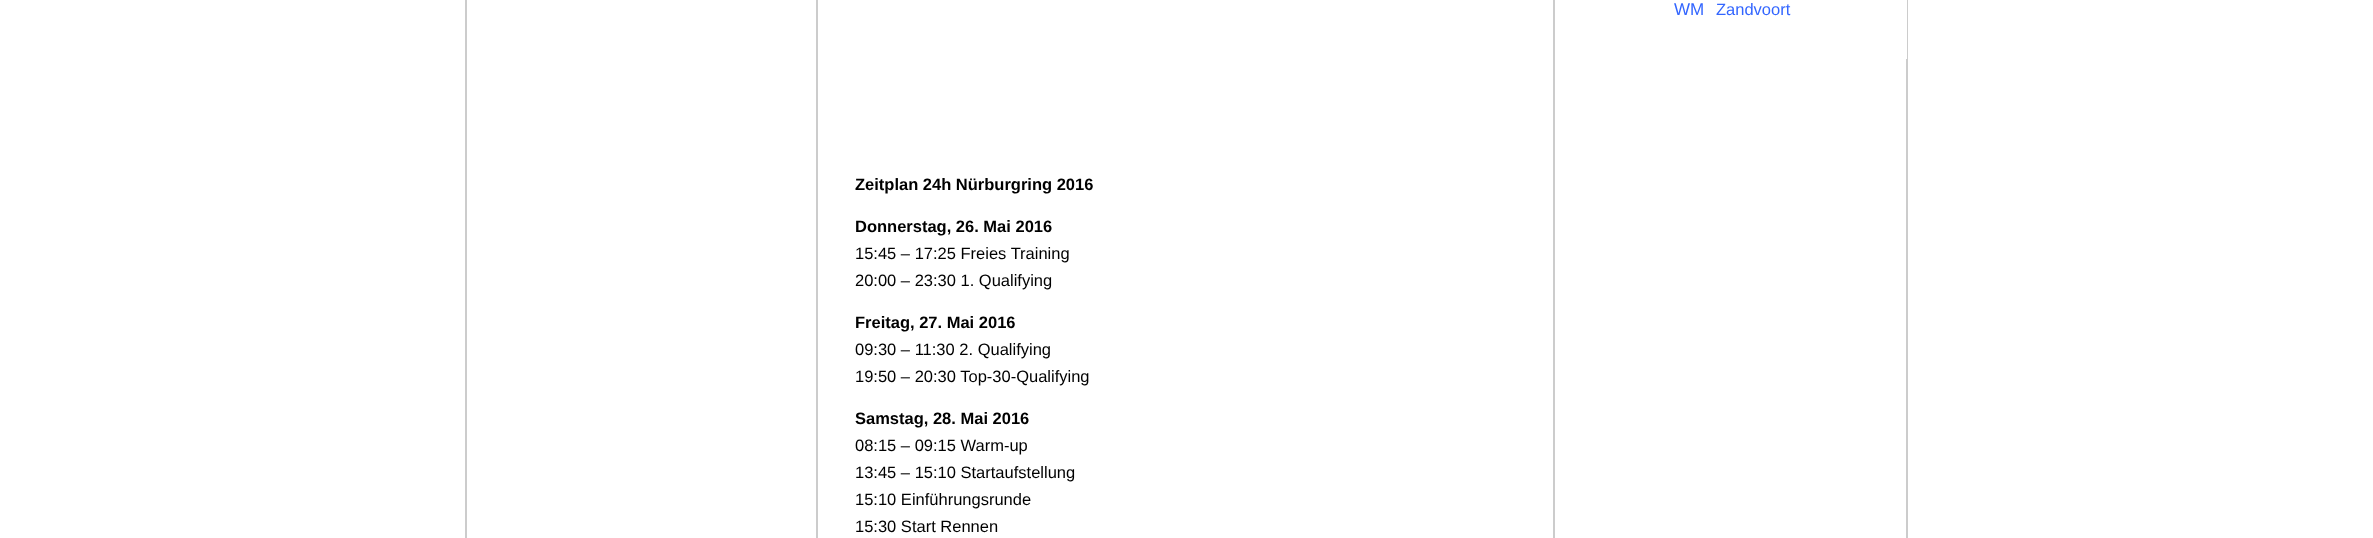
<!DOCTYPE html>
<meta charset="utf-8">
<style>body { margin: 0 } canvas { display: block }</style>
<canvas id="canvas" width="2373" height="538"></canvas>
<script>
window.onload = function () {
	const canvas = document.getElementById("canvas");
	const ctx = canvas.getContext("2d");
	ctx.miterLimit = 4;
	ctx.fontKerning = "normal";
	function txt(s, x, y) {
		ctx.fillText(s, x, y);
	}
	function fill(x, y, w, h) {
		ctx.fillRect(x, y, w, h);
	}

	ctx.fillStyle = "#FFFFFF";
	fill(0, 0, 2373, 538);
	ctx.strokeStyle = "#CCCCCC";
	ctx.lineWidth = 2;
	ctx.strokeRect(466, -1, 1441, 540);
	fill(1906, 0, 1, 59);
	ctx.fillStyle = "#CCCCCC";
	fill(1553, 0, 2, 538);
	fill(816, 0, 2, 538);
	ctx.font = "17px Liberation Sans";
	ctx.fillStyle = "#3366FF";
	txt("WM", 1674, 15);
	ctx.font = "16.5px Liberation Sans";
	txt("Zandvoort", 1716, 15);
	ctx.font = "bold 16.5px Liberation Sans";
	ctx.fillStyle = "#000000";
	txt("Zeitplan 24h Nürburgring 2016", 855, 190);
	txt("Donnerstag, 26. Mai 2016", 855, 232);
	ctx.font = "16.5px Liberation Sans";
	txt("15:45 – 17:25 Freies Training", 855, 259);
	txt("20:00 – 23:30 1. Qualifying", 855, 286);
	ctx.font = "bold 16.5px Liberation Sans";
	txt("Freitag, 27. Mai 2016", 855, 328);
	ctx.font = "16.5px Liberation Sans";
	txt("09:30 – 11:30 2. Qualifying", 855, 355);
	txt("19:50 – 20:30 Top-30-Qualifying", 855, 382);
	ctx.font = "bold 16.5px Liberation Sans";
	txt("Samstag, 28. Mai 2016", 855, 424);
	ctx.font = "16.5px Liberation Sans";
	txt("08:15 – 09:15 Warm-up", 855, 451);
	txt("13:45 – 15:10 Startaufstellung", 855, 478);
	txt("15:10 Einführungsrunde", 855, 505);
	txt("15:30 Start Rennen", 855, 532);
};
</script>
